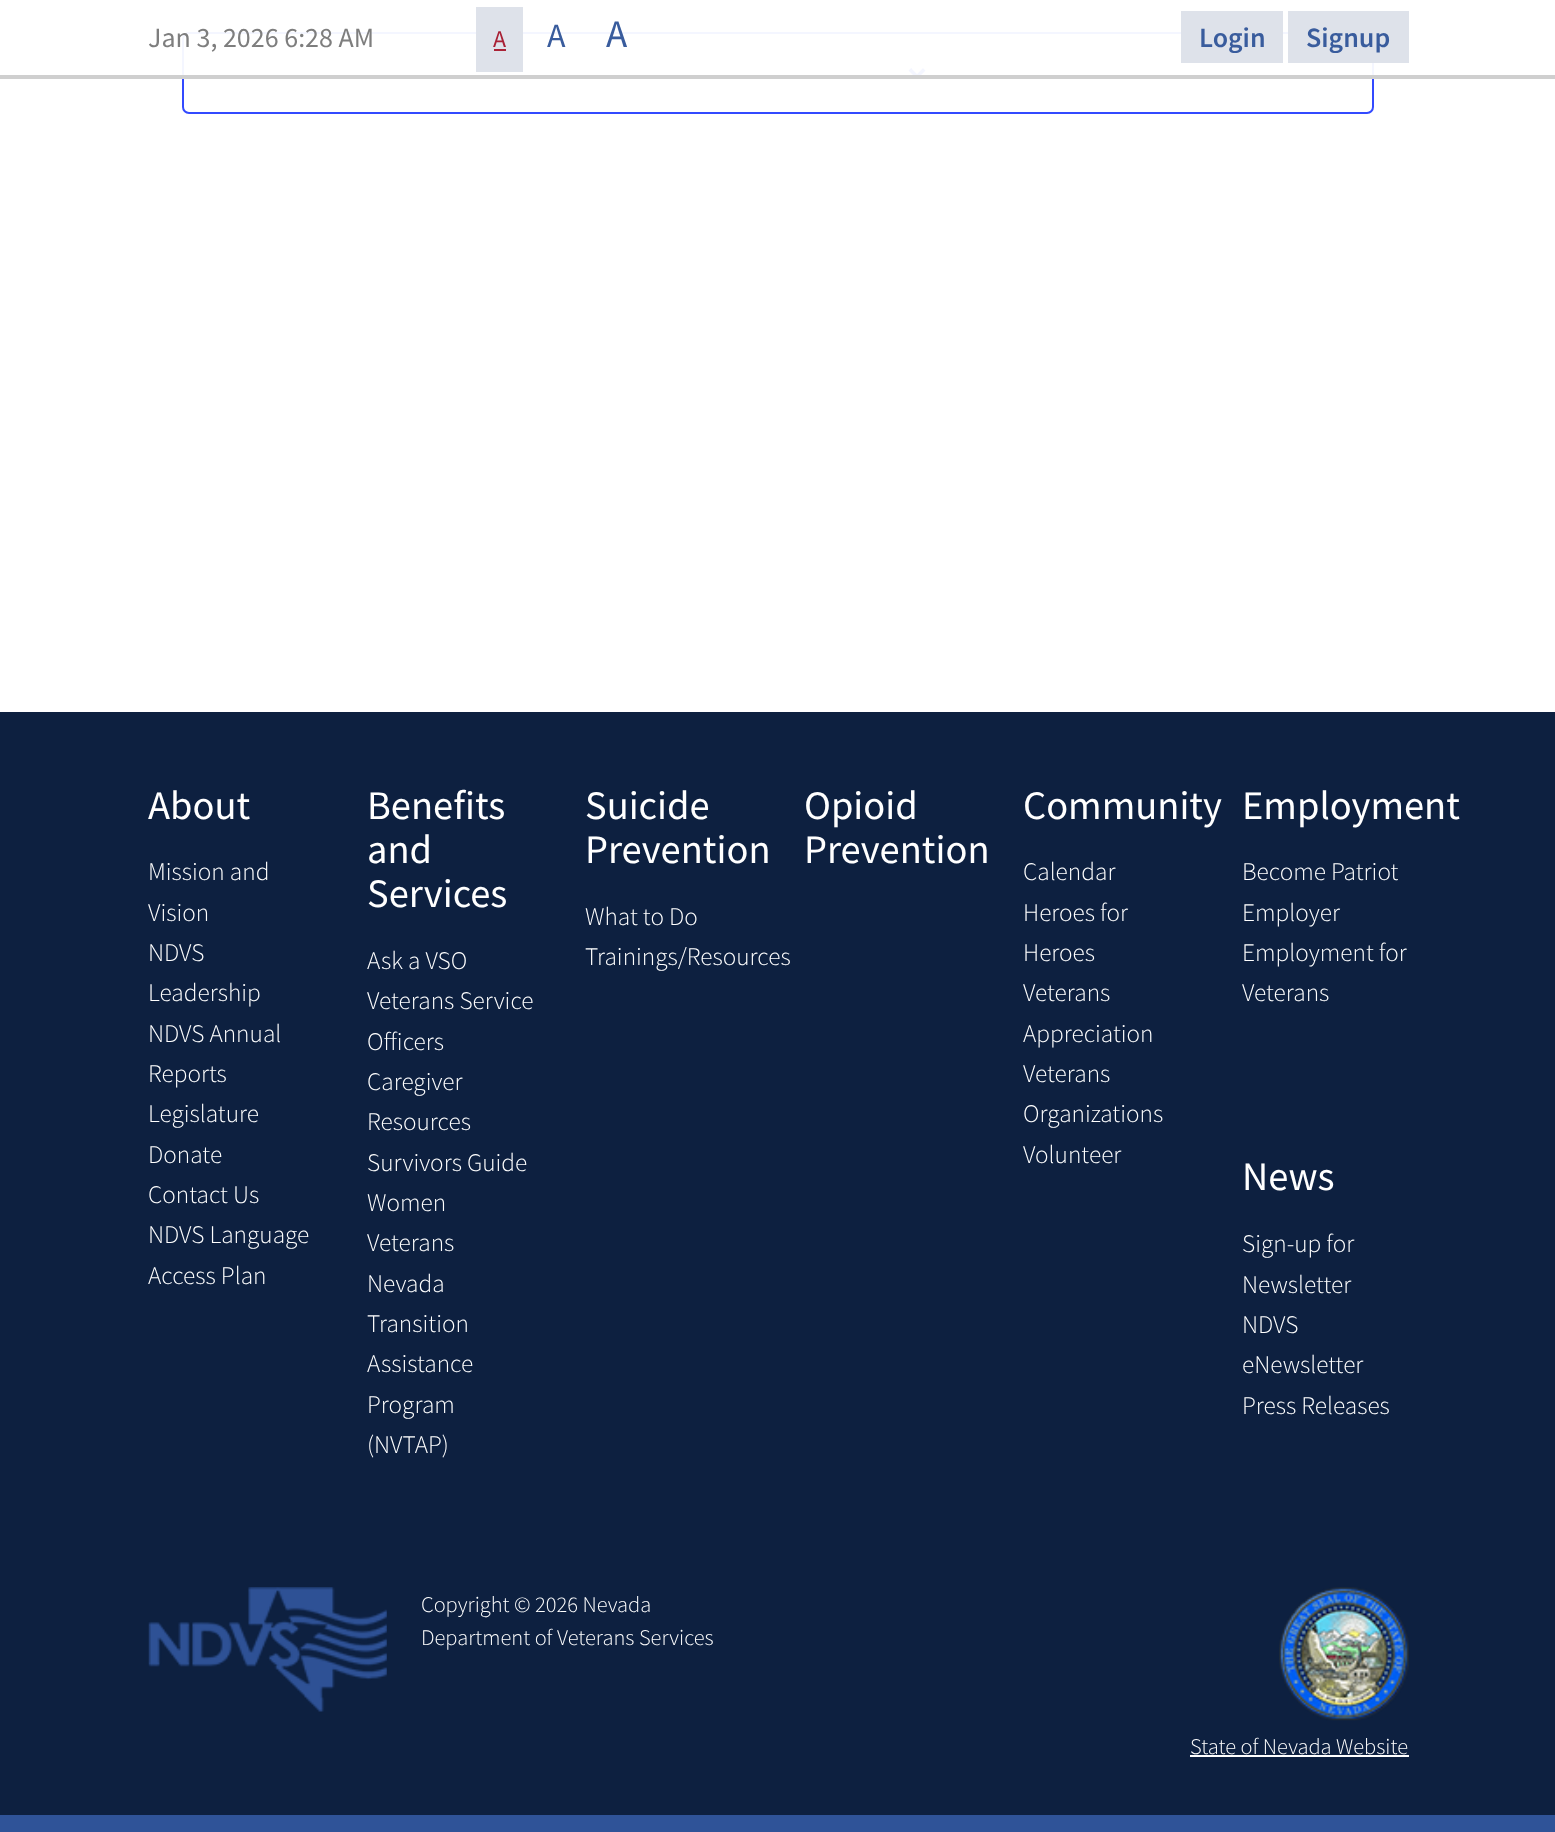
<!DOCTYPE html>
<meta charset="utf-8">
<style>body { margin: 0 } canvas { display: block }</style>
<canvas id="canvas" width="1555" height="1832"></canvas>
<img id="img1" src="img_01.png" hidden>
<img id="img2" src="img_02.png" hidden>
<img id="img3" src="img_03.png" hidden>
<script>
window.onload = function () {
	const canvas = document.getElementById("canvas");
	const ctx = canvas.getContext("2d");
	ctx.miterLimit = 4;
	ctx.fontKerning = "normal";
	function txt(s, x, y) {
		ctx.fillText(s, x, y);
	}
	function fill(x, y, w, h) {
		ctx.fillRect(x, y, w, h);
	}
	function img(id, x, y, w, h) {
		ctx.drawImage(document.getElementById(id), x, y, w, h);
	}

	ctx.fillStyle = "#FFFFFF";
	fill(0, 0, 1555, 1832);
	ctx.beginPath();
	ctx.roundRect(183, 33, 1190, 80, 6);
	ctx.strokeStyle = "#334AFF";
	ctx.lineWidth = 2;
	ctx.stroke();
	img("img1", 908, 68, 18, 11);
	ctx.fillStyle = "rgba(255, 255, 255, 0.95)";
	fill(182, 32, 1192, 47);
	ctx.fillStyle = "rgba(204, 204, 204, 0.95)";
	fill(0, 75, 1555, 4);
	ctx.fillStyle = "rgba(220, 224, 233, 0.95)";
	fill(476, 7, 47, 65);
	ctx.fillStyle = "#AA2236";
	fill(494, 49, 12, 2);
	ctx.fillStyle = "rgba(220, 224, 233, 0.95)";
	fill(1181, 11, 102, 52);
	fill(1288, 11, 121, 52);
	ctx.fillStyle = "#0D2040";
	fill(0, 712, 1555, 1103);
	ctx.fillStyle = "#2F5398";
	fill(0, 1815, 1555, 17);
	img("img2", 148, 1587, 239, 125);
	img("img3", 1279, 1587, 130, 134);
	ctx.fillStyle = "#FFFFFF";
	fill(1190, 1755, 219, 2);
	ctx.font = "28px Source Sans Pro";
	ctx.fillStyle = "#7E7E7E";
	txt("Jan 3, 2026 6:28 AM", 148, 47);
	ctx.font = "24px Source Sans Pro";
	ctx.fillStyle = "#A82035";
	txt("A", 493, 47);
	ctx.font = "34px Source Sans Pro";
	ctx.fillStyle = "#395C9D";
	txt("A", 547, 47);
	ctx.font = "39px Source Sans Pro";
	txt("A", 606, 47);
	ctx.font = "600 28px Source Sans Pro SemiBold";
	txt("Login", 1199, 47);
	txt("Signup", 1306, 47);
	ctx.font = "40.5px Source Sans Pro";
	ctx.fillStyle = "#FFFFFF";
	txt("About", 148, 819);
	ctx.font = "300 25.25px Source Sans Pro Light";
	txt("Mission and", 148, 880);
	txt("Vision", 148, 921);
	txt("NDVS", 148, 961);
	txt("Leadership", 148, 1001);
	txt("NDVS Annual", 148, 1042);
	txt("Reports", 148, 1082);
	txt("Legislature", 148, 1122);
	txt("Donate", 148, 1163);
	txt("Contact Us", 148, 1203);
	txt("NDVS Language", 148, 1243);
	txt("Access Plan", 148, 1284);
	ctx.font = "40.5px Source Sans Pro";
	txt("Benefits", 367, 819);
	txt("and", 367, 863);
	txt("Services", 367, 907);
	ctx.font = "300 25.25px Source Sans Pro Light";
	txt("Ask a VSO", 367, 969);
	txt("Veterans Service", 367, 1009);
	txt("Officers", 367, 1050);
	txt("Caregiver", 367, 1090);
	txt("Resources", 367, 1130);
	txt("Survivors Guide", 367, 1171);
	txt("Women", 367, 1211);
	txt("Veterans", 367, 1251);
	txt("Nevada", 367, 1292);
	txt("Transition", 367, 1332);
	txt("Assistance", 367, 1372);
	txt("Program", 367, 1413);
	txt("(NVTAP)", 367, 1453);
	ctx.font = "40.5px Source Sans Pro";
	txt("Suicide", 585, 819);
	txt("Prevention", 585, 863);
	ctx.font = "300 25.25px Source Sans Pro Light";
	txt("What to Do", 585, 925);
	txt("Trainings/Resources", 585, 965);
	ctx.font = "40.5px Source Sans Pro";
	txt("Opioid", 804, 819);
	txt("Prevention", 804, 863);
	txt("Community", 1023, 819);
	ctx.font = "300 25.25px Source Sans Pro Light";
	txt("Calendar", 1023, 880);
	txt("Heroes for", 1023, 921);
	txt("Heroes", 1023, 961);
	txt("Veterans", 1023, 1001);
	txt("Appreciation", 1023, 1042);
	txt("Veterans", 1023, 1082);
	txt("Organizations", 1023, 1122);
	txt("Volunteer", 1023, 1163);
	ctx.font = "40.5px Source Sans Pro";
	txt("Employment", 1242, 819);
	ctx.font = "300 25.25px Source Sans Pro Light";
	txt("Become Patriot", 1242, 880);
	txt("Employer", 1242, 921);
	txt("Employment for", 1242, 961);
	txt("Veterans", 1242, 1001);
	ctx.font = "40.5px Source Sans Pro";
	txt("News", 1242, 1190);
	ctx.font = "300 25.25px Source Sans Pro Light";
	txt("Sign-up for", 1242, 1252);
	txt("Newsletter", 1242, 1293);
	txt("NDVS", 1242, 1333);
	txt("eNewsletter", 1242, 1373);
	txt("Press Releases", 1242, 1414);
	ctx.font = "300 22.4px Source Sans Pro Light";
	txt("Copyright © 2026 Nevada", 421, 1612);
	txt("Department of Veterans Services", 421, 1645);
	txt("State of Nevada Website", 1190, 1754);
};
</script>
